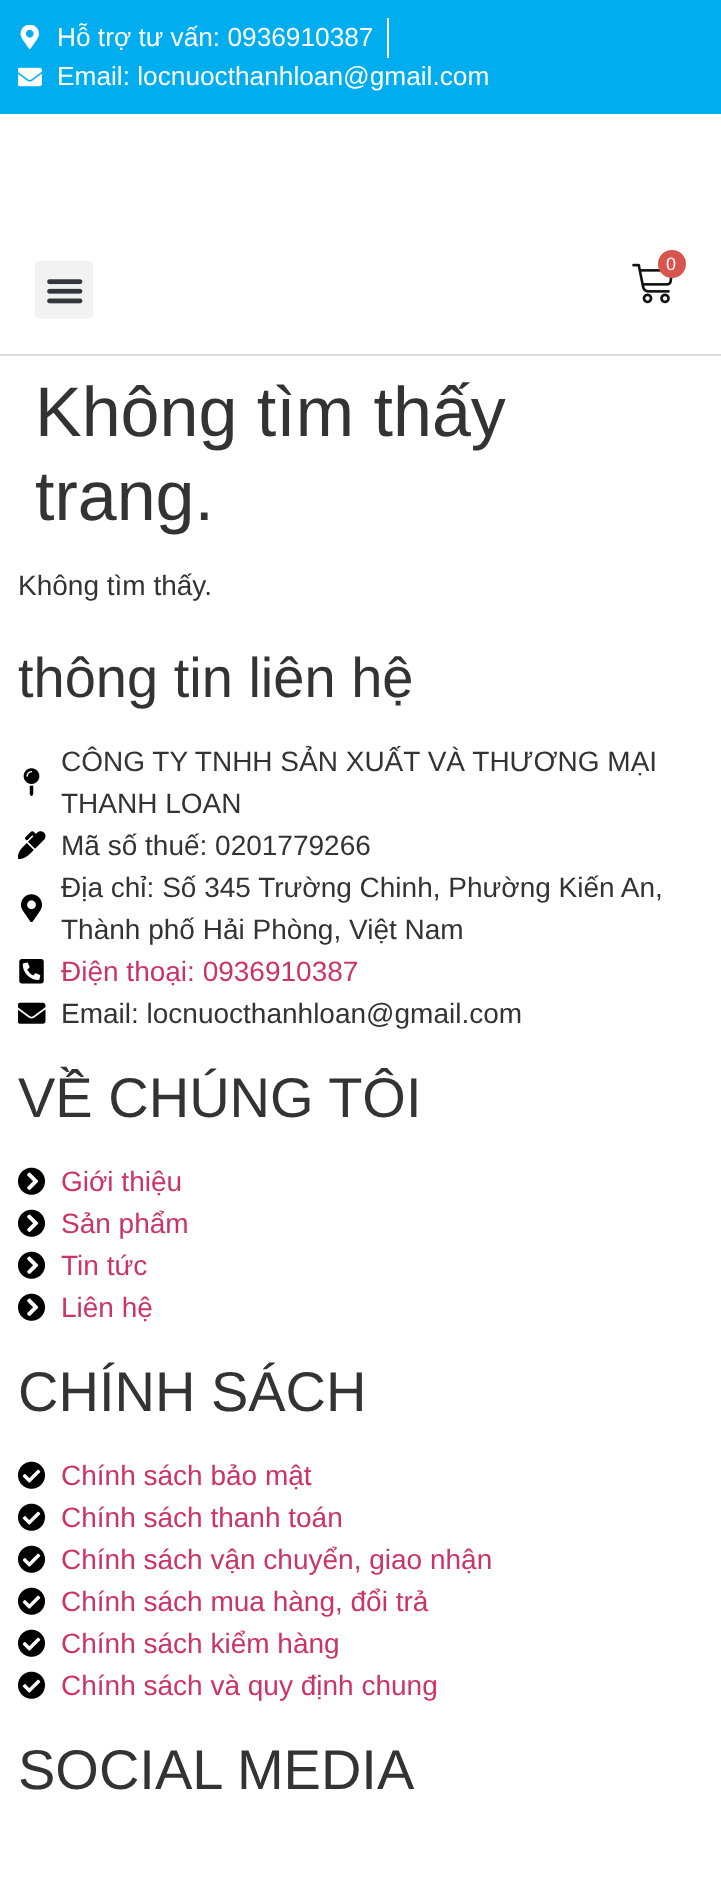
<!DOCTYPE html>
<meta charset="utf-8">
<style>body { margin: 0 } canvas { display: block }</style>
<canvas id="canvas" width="721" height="1893"></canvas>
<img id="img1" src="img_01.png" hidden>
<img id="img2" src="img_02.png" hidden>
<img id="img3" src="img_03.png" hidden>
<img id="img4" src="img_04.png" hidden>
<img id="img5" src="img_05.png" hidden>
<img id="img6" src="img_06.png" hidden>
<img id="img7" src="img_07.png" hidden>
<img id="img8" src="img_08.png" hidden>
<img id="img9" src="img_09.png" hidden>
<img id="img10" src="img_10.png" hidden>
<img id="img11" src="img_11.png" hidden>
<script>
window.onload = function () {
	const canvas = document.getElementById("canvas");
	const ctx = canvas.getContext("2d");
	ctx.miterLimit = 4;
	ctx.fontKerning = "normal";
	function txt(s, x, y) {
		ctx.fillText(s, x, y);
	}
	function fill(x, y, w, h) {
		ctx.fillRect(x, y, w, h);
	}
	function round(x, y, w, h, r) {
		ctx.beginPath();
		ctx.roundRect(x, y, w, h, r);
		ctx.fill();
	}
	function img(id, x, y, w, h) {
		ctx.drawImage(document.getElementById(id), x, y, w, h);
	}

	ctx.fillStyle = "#FFFFFF";
	fill(0, 0, 721, 1893);
	ctx.fillStyle = "#00AEF0";
	fill(0, 0, 721, 114);
	img("img1", 20, 25, 19, 24);
	ctx.fillStyle = "#FFFFFF";
	fill(387, 18, 2, 40);
	img("img2", 18, 67, 24, 20);
	ctx.fillStyle = "#DDDDDD";
	fill(0, 354, 721, 2);
	ctx.fillStyle = "#F2F2F2";
	round(35, 261, 58, 58, 5);
	img("img3", 47, 279, 36, 25);
	img("img4", 632, 263, 41, 41);
	ctx.fillStyle = "#D9534F";
	ctx.beginPath();
	ctx.arc(672, 264, 14, 0, Math.PI * 2);
	ctx.fill();
	img("img5", 23, 768, 17, 28);
	img("img6", 18, 831, 28, 28);
	img("img7", 21, 894, 21, 28);
	img("img8", 19, 959, 25, 25);
	img("img9", 18, 1002, 28, 22);
	img("img10", 18, 1167, 28, 28);
	img("img10", 18, 1209, 28, 28);
	img("img10", 18, 1251, 28, 28);
	img("img10", 18, 1293, 28, 28);
	img("img11", 18, 1461, 28, 28);
	img("img11", 18, 1503, 28, 28);
	img("img11", 18, 1545, 28, 28);
	img("img11", 18, 1587, 28, 28);
	img("img11", 18, 1629, 28, 28);
	img("img11", 18, 1671, 28, 28);
	ctx.font = "26.25px Liberation Sans";
	ctx.fillStyle = "#FFFFFF";
	txt("Hỗ trợ tư vấn: 0936910387", 57, 46);
	txt("Email: locnuocthanhloan@gmail.com", 57, 85);
	ctx.font = "18px Liberation Sans";
	txt("0", 666, 270);
	ctx.font = "70px Liberation Sans";
	ctx.fillStyle = "#333333";
	txt("Không tìm thấy", 35, 436);
	txt("trang.", 35, 520);
	ctx.font = "28px Liberation Sans";
	txt("Không tìm thấy.", 18, 595);
	ctx.font = "56px Liberation Sans";
	txt("thông tin liên hệ", 18, 697);
	ctx.font = "28px Liberation Sans";
	txt("CÔNG TY TNHH SẢN XUẤT VÀ THƯƠNG MẠI", 61, 771);
	txt("THANH LOAN", 61, 813);
	txt("Mã số thuế: 0201779266", 61, 855);
	txt("Địa chỉ: Số 345 Trường Chinh, Phường Kiến An,", 61, 897);
	txt("Thành phố Hải Phòng, Việt Nam", 61, 939);
	ctx.fillStyle = "#CC3366";
	txt("Điện thoại: 0936910387", 61, 981);
	ctx.fillStyle = "#333333";
	txt("Email: locnuocthanhloan@gmail.com", 61, 1023);
	ctx.font = "56px Liberation Sans";
	txt("VỀ CHÚNG TÔI", 18, 1117);
	ctx.font = "28px Liberation Sans";
	ctx.fillStyle = "#CC3366";
	txt("Giới thiệu", 61, 1191);
	txt("Sản phẩm", 61, 1233);
	txt("Tin tức", 61, 1275);
	txt("Liên hệ", 61, 1317);
	ctx.font = "56px Liberation Sans";
	ctx.fillStyle = "#333333";
	txt("CHÍNH SÁCH", 18, 1411);
	ctx.font = "28px Liberation Sans";
	ctx.fillStyle = "#CC3366";
	txt("Chính sách bảo mật", 61, 1485);
	txt("Chính sách thanh toán", 61, 1527);
	txt("Chính sách vận chuyển, giao nhận", 61, 1569);
	txt("Chính sách mua hàng, đổi trả", 61, 1611);
	txt("Chính sách kiểm hàng", 61, 1653);
	txt("Chính sách và quy định chung", 61, 1695);
	ctx.font = "56px Liberation Sans";
	ctx.fillStyle = "#333333";
	txt("SOCIAL MEDIA", 18, 1789);
};
</script>
